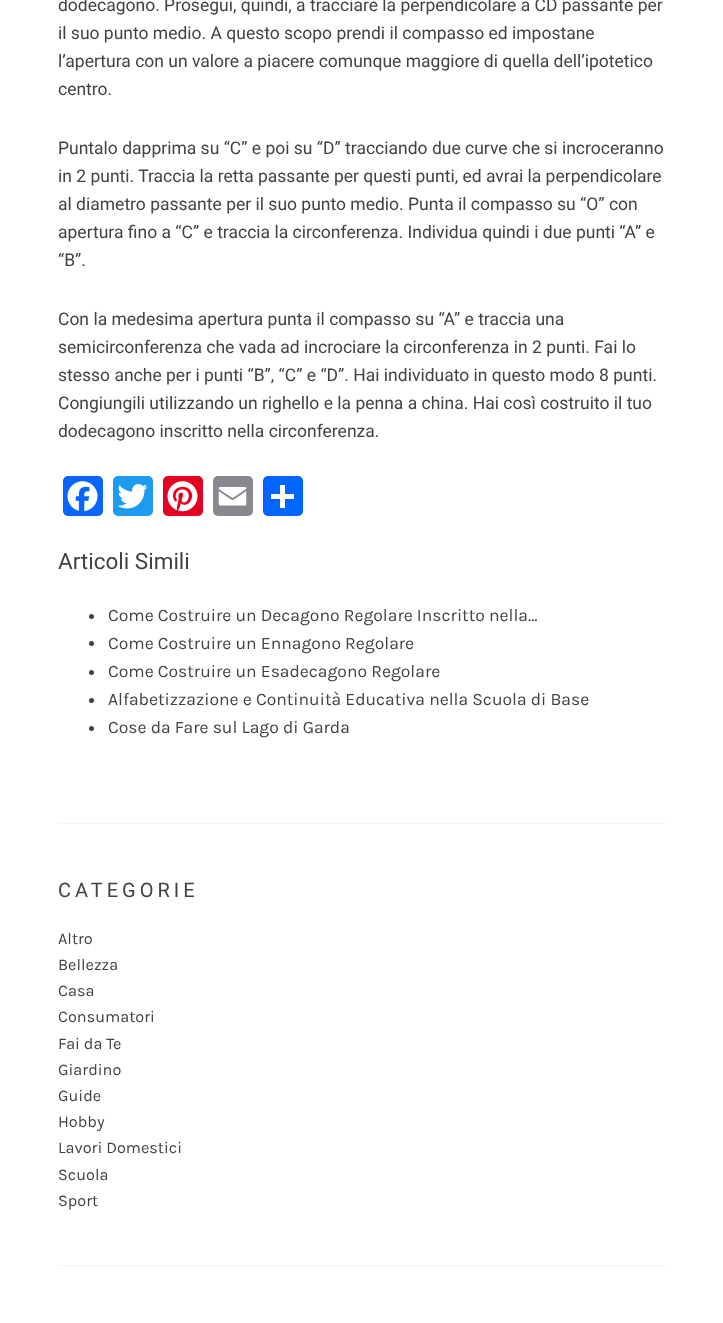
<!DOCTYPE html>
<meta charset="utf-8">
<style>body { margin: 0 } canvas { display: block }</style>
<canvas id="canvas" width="723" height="1323"></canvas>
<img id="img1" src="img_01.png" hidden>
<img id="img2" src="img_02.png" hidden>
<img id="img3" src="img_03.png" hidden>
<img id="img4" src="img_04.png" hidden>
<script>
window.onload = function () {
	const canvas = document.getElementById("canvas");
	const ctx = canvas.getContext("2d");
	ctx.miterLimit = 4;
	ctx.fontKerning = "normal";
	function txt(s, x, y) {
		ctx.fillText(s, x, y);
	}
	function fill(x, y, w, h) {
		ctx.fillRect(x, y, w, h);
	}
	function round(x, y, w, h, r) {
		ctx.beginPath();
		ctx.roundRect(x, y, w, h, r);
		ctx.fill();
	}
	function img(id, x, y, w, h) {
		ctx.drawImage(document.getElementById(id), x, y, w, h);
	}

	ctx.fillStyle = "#FFFFFF";
	fill(0, 0, 723, 1323);
	ctx.fillStyle = "#F2F2F2";
	fill(58, 823, 608, 1);
	ctx.fillStyle = "#0866FF";
	round(63, 476, 40, 40, 5);
	img("img1", 67, 481, 31, 31);
	ctx.fillStyle = "#1D9BF0";
	round(113, 476, 40, 40, 5);
	img("img2", 117, 484, 31, 25);
	ctx.fillStyle = "#E60023";
	round(163, 476, 40, 40, 5);
	img("img3", 167, 481, 31, 31);
	ctx.fillStyle = "#888990";
	round(213, 476, 40, 40, 5);
	img("img4", 218, 487, 29, 19);
	ctx.fillStyle = "#0166FF";
	round(263, 476, 40, 40, 5);
	ctx.fillStyle = "#FFFFFF";
	fill(280, 485, 5, 23);
	fill(271, 494, 23, 5);
	ctx.fillStyle = "#424243";
	ctx.beginPath();
	ctx.arc(91.5, 616.5, 2.5, 0, Math.PI * 2);
	ctx.fill();
	ctx.beginPath();
	ctx.arc(91.5, 643.5, 2.5, 0, Math.PI * 2);
	ctx.fill();
	ctx.beginPath();
	ctx.arc(91.5, 672.5, 2.5, 0, Math.PI * 2);
	ctx.fill();
	ctx.beginPath();
	ctx.arc(91.5, 700.5, 2.5, 0, Math.PI * 2);
	ctx.fill();
	ctx.beginPath();
	ctx.arc(91.5, 728.5, 2.5, 0, Math.PI * 2);
	ctx.fill();
	ctx.fillStyle = "#F2F2F2";
	fill(58, 1265, 608, 1);
	ctx.font = "17.5px Roboto";
	ctx.fillStyle = "#424243";
	txt("dodecagono. Prosegui, quindi, a tracciare la perpendicolare a CD passante per", 58, 11);
	txt("il suo punto medio. A questo scopo prendi il compasso ed impostane", 58, 39);
	txt("l’apertura con un valore a piacere comunque maggiore di quella dell’ipotetico", 58, 67);
	txt("centro.", 58, 95);
	txt("Puntalo dapprima su “C” e poi su “D” tracciando due curve che si incroceranno", 58, 154);
	txt("in 2 punti. Traccia la retta passante per questi punti, ed avrai la perpendicolare", 58, 182);
	txt("al diametro passante per il suo punto medio. Punta il compasso su “O” con", 58, 210);
	txt("apertura fino a “C” e traccia la circonferenza. Individua quindi i due punti “A” e", 58, 238);
	txt("“B”.", 58, 266);
	txt("Con la medesima apertura punta il compasso su “A” e traccia una", 58, 325);
	txt("semicirconferenza che vada ad incrociare la circonferenza in 2 punti. Fai lo", 58, 353);
	txt("stesso anche per i punti “B”, “C” e “D”. Hai individuato in questo modo 8 punti.", 58, 381);
	txt("Congiungili utilizzando un righello e la penna a china. Hai così costruito il tuo", 58, 409);
	txt("dodecagono inscritto nella circonferenza.", 58, 437);
	ctx.font = "22.5px Roboto";
	txt("Articoli Simili", 58, 569);
	ctx.font = "17.5px Karla";
	txt("Come Costruire un Decagono Regolare Inscritto nella…", 108, 621);
	txt("Come Costruire un Ennagono Regolare", 108, 649);
	txt("Come Costruire un Esadecagono Regolare", 108, 677);
	txt("Alfabetizzazione e Continuità Educativa nella Scuola di Base", 108, 705);
	txt("Cose da Fare sul Lago di Garda", 108, 733);
	ctx.letterSpacing = "4px";
	ctx.font = "20px Roboto";
	txt("CATEGORIE", 58, 897);
	ctx.letterSpacing = "0px";
	ctx.font = "16.25px Karla";
	txt("Altro", 58, 944);
	txt("Bellezza", 58, 970);
	txt("Casa", 58, 996);
	txt("Consumatori", 58, 1022);
	txt("Fai da Te", 58, 1049);
	txt("Giardino", 58, 1075);
	txt("Guide", 58, 1101);
	txt("Hobby", 58, 1127);
	txt("Lavori Domestici", 58, 1153);
	txt("Scuola", 58, 1180);
	txt("Sport", 58, 1206);
};
</script>
